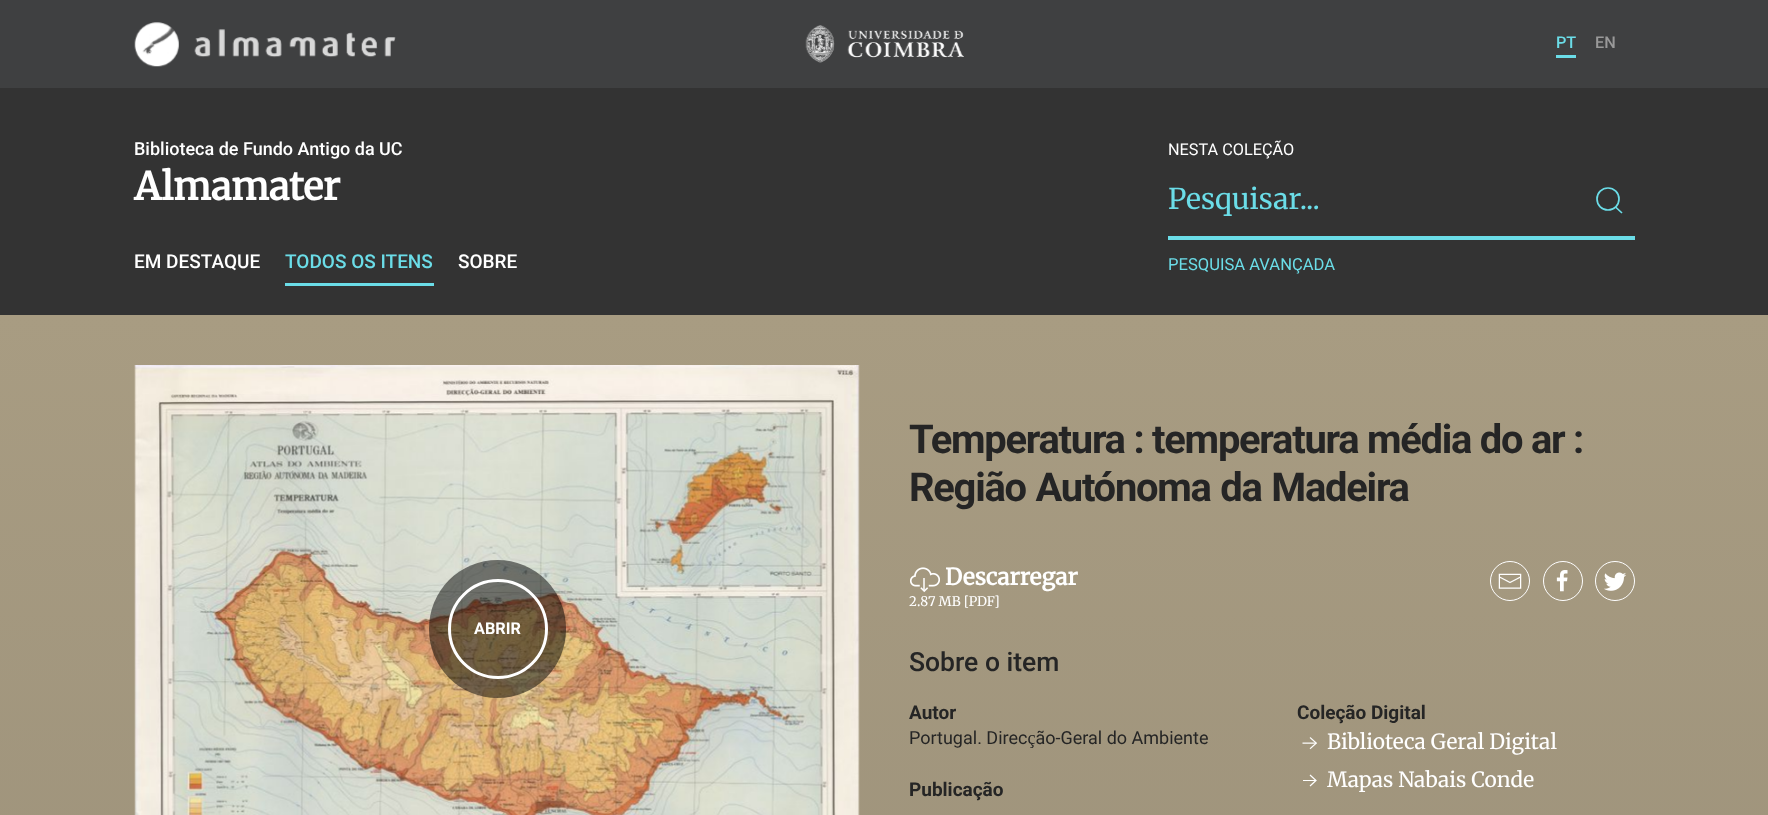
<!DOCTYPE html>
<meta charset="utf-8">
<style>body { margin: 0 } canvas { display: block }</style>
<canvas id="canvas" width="1768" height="815"></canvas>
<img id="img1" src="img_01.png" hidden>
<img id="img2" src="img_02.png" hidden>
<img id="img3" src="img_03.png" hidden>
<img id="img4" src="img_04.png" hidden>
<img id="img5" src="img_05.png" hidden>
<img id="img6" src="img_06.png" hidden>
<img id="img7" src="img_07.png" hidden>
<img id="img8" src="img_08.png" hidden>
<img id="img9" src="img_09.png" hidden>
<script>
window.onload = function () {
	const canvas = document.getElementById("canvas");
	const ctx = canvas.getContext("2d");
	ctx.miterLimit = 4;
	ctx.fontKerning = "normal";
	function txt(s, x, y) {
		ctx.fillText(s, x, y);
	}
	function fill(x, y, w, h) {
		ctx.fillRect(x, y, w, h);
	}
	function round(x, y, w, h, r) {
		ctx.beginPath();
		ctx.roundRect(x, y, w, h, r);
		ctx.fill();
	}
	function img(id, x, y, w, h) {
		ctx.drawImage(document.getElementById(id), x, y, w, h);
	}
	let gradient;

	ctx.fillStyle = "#333333";
	fill(0, 0, 1768, 815);
	ctx.fillStyle = "#3F4041";
	fill(0, 0, 1768, 88);
	img("img1", 134, 22, 45, 45);
	img("img2", 194, 29, 202, 29);
	img("img3", 805, 25, 159, 38);
	ctx.fillStyle = "#6BDDE8";
	fill(1556, 55, 20, 3);
	fill(285, 283, 149, 3);
	fill(1168, 236, 467, 4);
	ctx.beginPath();
	ctx.arc(1608, 199, 11, 0, Math.PI * 2);
	ctx.strokeStyle = "#6BDDE8";
	ctx.lineWidth = 1.7;
	ctx.stroke();
	ctx.beginPath();
	ctx.moveTo(1615.5, 207);
	ctx.lineTo(1622, 213);
	ctx.closePath();
	ctx.stroke();
	gradient = ctx.createLinearGradient(884, 315, 884, 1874);
	gradient.addColorStop(0, "#A89C82");
	gradient.addColorStop(1, "#918772");
	ctx.fillStyle = gradient;
	fill(0, 315, 1768, 500);
	img("img4", 134, 365, 726, 450);
	ctx.fillStyle = "rgba(0, 0, 0, 0.5)";
	round(429, 560, 137, 138, 68.5);
	ctx.beginPath();
	ctx.arc(498, 629, 48.5, 0, Math.PI * 2);
	ctx.strokeStyle = "#FFFFFF";
	ctx.lineWidth = 3;
	ctx.stroke();
	img("img5", 910, 567, 30, 26);
	ctx.beginPath();
	ctx.arc(1510, 581, 19.5, 0, Math.PI * 2);
	ctx.lineWidth = 1;
	ctx.stroke();
	img("img6", 1498, 573, 24, 16);
	ctx.beginPath();
	ctx.arc(1563, 581, 19.5, 0, Math.PI * 2);
	ctx.stroke();
	img("img7", 1556, 570, 12, 22);
	ctx.beginPath();
	ctx.arc(1615, 581, 19.5, 0, Math.PI * 2);
	ctx.stroke();
	img("img8", 1604, 572, 22, 19);
	img("img9", 1302, 737, 15, 13);
	ctx.beginPath();
	ctx.moveTo(1310, 775);
	ctx.lineTo(1316, 780.5);
	ctx.lineTo(1310, 786);
	ctx.lineWidth = 1.2;
	ctx.stroke();
	ctx.fillStyle = "#FFFFFF";
	fill(1303, 780, 13, 1);
	ctx.font = "500 16.25px Roboto";
	ctx.fillStyle = "#6BDDE8";
	txt("PT", 1556, 48);
	ctx.fillStyle = "#999999";
	txt("EN", 1595, 48);
	ctx.font = "500 18px Roboto";
	ctx.fillStyle = "#FFFFFF";
	txt("Biblioteca de Fundo Antigo da UC", 134, 155);
	ctx.font = "bold 38px Merriweather";
	txt("Almamater", 134, 200);
	ctx.font = "500 19px Roboto";
	txt("EM DESTAQUE", 134, 268);
	ctx.fillStyle = "#6BDDE8";
	txt("TODOS OS ITENS", 285, 268);
	ctx.fillStyle = "#FFFFFF";
	txt("SOBRE", 458, 268);
	ctx.font = "16.25px Roboto";
	txt("NESTA COLEÇÃO", 1168, 155);
	ctx.font = "300 28.5px Merriweather";
	ctx.fillStyle = "#6BDDE8";
	txt("Pesquisar...", 1168, 209);
	ctx.font = "16.6px Roboto";
	txt("PESQUISA AVANÇADA", 1168, 270);
	ctx.font = "bold 16.25px Roboto";
	ctx.fillStyle = "#FFFFFF";
	txt("ABRIR", 474, 634);
	ctx.letterSpacing = "-1.25px";
	ctx.font = "bold 39.9px Roboto";
	ctx.fillStyle = "#252525";
	txt("Temperatura : temperatura média do ar :", 909, 453);
	ctx.wordSpacing = "1px";
	txt("Região Autónoma da Madeira", 909, 501);
	ctx.letterSpacing = "0px";
	ctx.wordSpacing = "0px";
	ctx.font = "bold 22.75px Merriweather";
	ctx.fillStyle = "#FFFFFF";
	txt("Descarregar", 945, 585);
	ctx.font = "300 13.25px Merriweather";
	txt("2.87 MB [PDF]", 909, 606);
	ctx.font = "500 26.5px Roboto";
	ctx.fillStyle = "#252525";
	txt("Sobre o item", 909, 671);
	ctx.font = "bold 19px Roboto";
	txt("Autor", 909, 719);
	ctx.font = "18px Roboto";
	txt("Portugal. Direcção-Geral do Ambiente", 909, 744);
	ctx.font = "bold 19px Roboto";
	txt("Publicação", 909, 796);
	txt("Coleção Digital", 1297, 719);
	ctx.font = "300 20.9px Merriweather";
	ctx.fillStyle = "#FFFFFF";
	txt("Biblioteca Geral Digital", 1327, 749);
	txt("Mapas Nabais Conde", 1327, 787);
};
</script>
